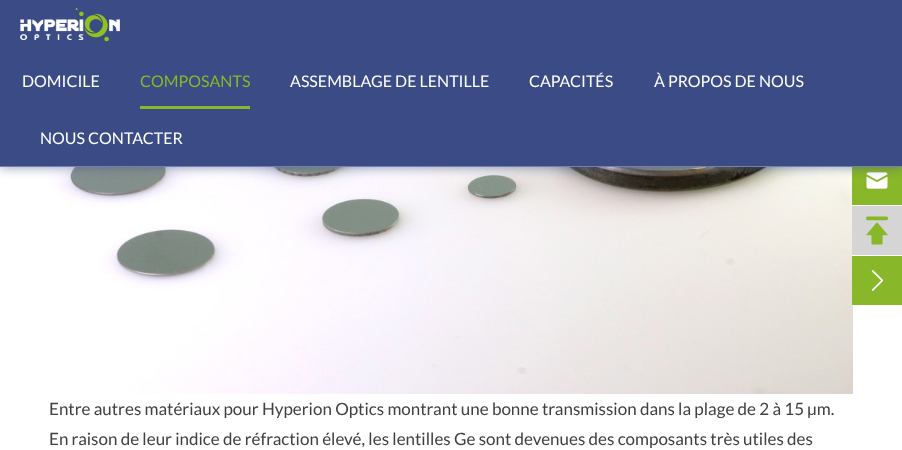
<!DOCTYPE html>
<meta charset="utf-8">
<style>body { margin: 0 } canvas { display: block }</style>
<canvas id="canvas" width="902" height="450"></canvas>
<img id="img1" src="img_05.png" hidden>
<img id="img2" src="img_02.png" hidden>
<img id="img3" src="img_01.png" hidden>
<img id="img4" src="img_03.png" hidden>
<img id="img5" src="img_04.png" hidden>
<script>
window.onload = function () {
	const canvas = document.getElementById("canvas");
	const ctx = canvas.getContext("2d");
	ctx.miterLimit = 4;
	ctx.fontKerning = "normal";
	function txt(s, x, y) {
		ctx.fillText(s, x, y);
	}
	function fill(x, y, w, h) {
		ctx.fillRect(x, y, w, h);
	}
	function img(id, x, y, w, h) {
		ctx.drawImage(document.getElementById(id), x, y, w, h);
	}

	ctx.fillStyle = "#FFFFFF";
	fill(0, 0, 902, 450);
	img("img1", 49, 167, 804, 227);
	ctx.fillStyle = "#88B729";
	fill(852, 167, 50, 38);
	img("img2", 866, 172, 22, 17);
	ctx.fillStyle = "rgba(58, 75, 133, 0.6)";
	ctx.filter = "blur(6px)";
	ctx.beginPath();
	ctx.rect(0, 0, 902, 167);
	ctx.fill();
	ctx.filter = "none";
	ctx.fillStyle = "#3A4B85";
	fill(0, 0, 902, 166);
	ctx.fillStyle = "#7581AA";
	fill(0, 166, 902, 1);
	img("img3", 20, 8, 100, 34);
	ctx.fillStyle = "#88B729";
	fill(140, 106, 110, 3);
	ctx.fillStyle = "#FFFFFF";
	fill(852, 205, 1, 1);
	ctx.fillStyle = "#D5D5D5";
	fill(852, 206, 50, 49);
	ctx.fillStyle = "#FFFFFF";
	fill(852, 255, 1, 1);
	img("img4", 865, 216, 24, 29);
	ctx.fillStyle = "#88B729";
	fill(852, 256, 50, 49);
	ctx.fillStyle = "#FFFFFF";
	fill(852, 305, 1, 1);
	img("img5", 871, 270, 13, 21);
	ctx.font = "16px Lato";
	txt("DOMICILE", 22, 87);
	ctx.fillStyle = "#88B729";
	txt("COMPOSANTS", 140, 87);
	ctx.fillStyle = "#FFFFFF";
	txt("ASSEMBLAGE DE LENTILLE", 290, 87);
	txt("CAPACITÉS", 529, 87);
	txt("À PROPOS DE NOUS", 654, 87);
	txt("NOUS CONTACTER", 40, 144);
	ctx.font = "17px Lato";
	ctx.fillStyle = "#404040";
	txt("Entre autres matériaux pour Hyperion Optics montrant une bonne transmission dans la plage de 2 à 15 µm.", 49, 415);
	txt("En raison de leur indice de réfraction élevé, les lentilles Ge sont devenues des composants très utiles des", 49, 445);
};
</script>
